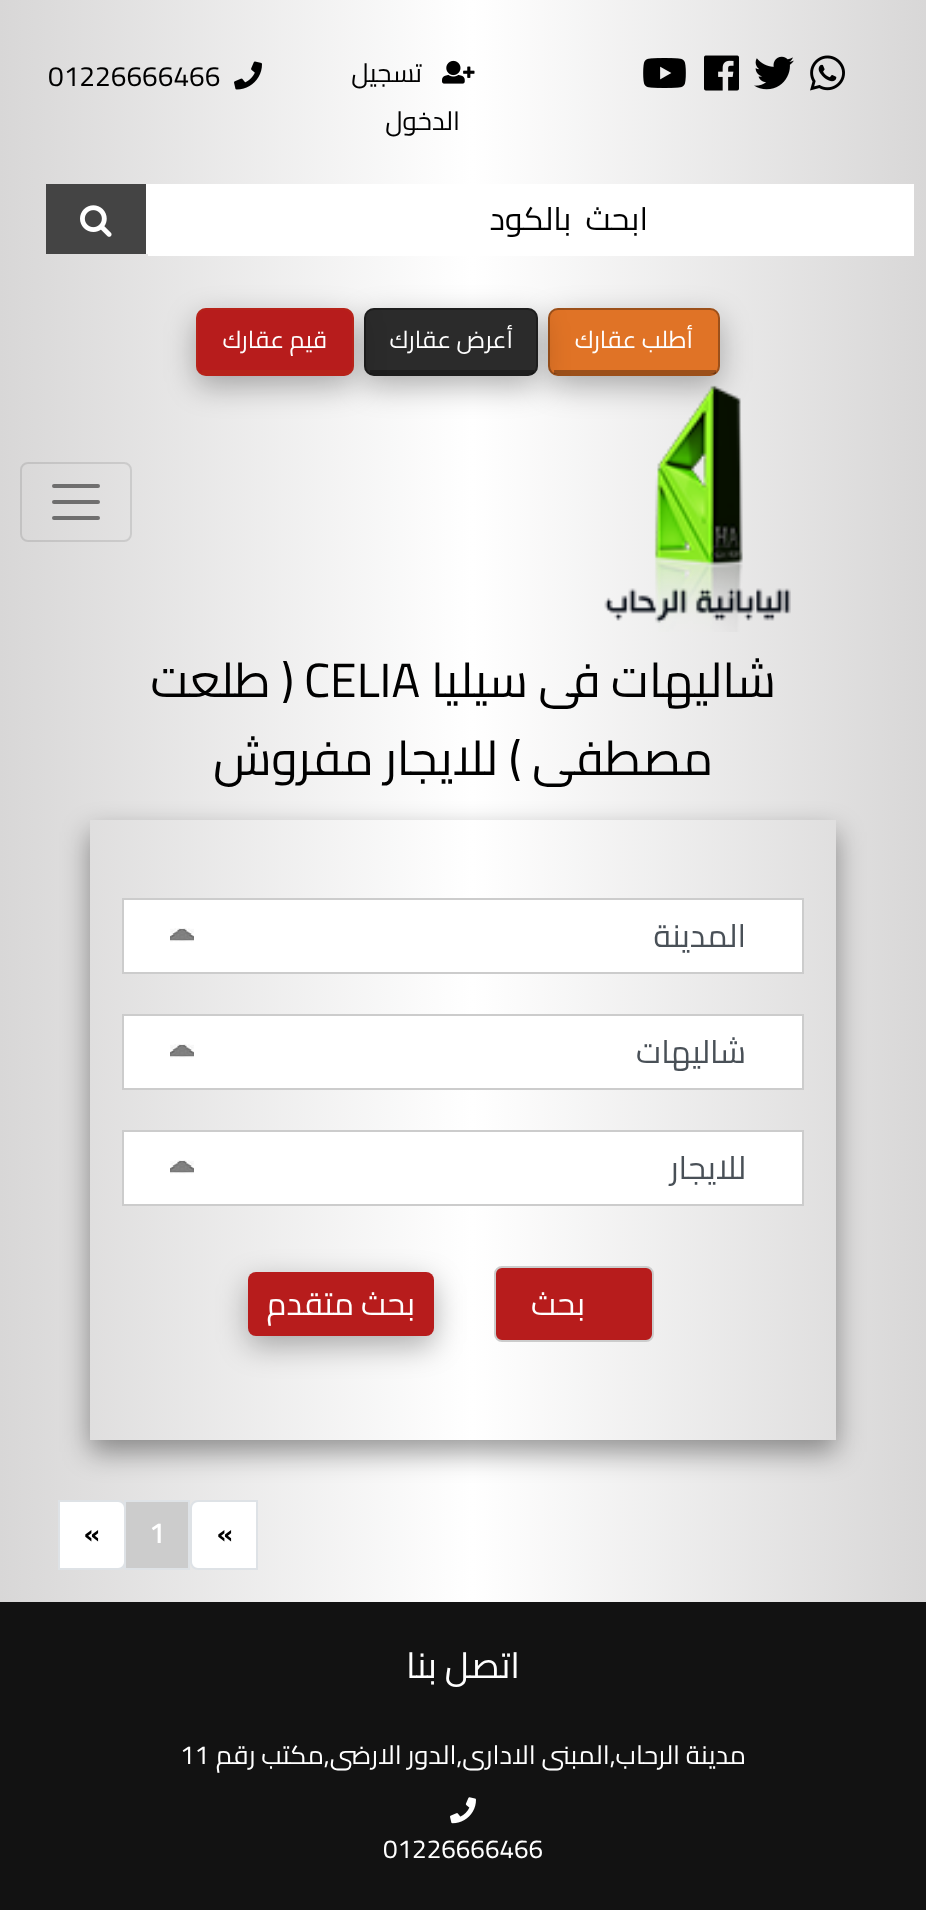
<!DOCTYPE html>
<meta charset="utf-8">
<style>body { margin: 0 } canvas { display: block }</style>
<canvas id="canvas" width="926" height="1910"></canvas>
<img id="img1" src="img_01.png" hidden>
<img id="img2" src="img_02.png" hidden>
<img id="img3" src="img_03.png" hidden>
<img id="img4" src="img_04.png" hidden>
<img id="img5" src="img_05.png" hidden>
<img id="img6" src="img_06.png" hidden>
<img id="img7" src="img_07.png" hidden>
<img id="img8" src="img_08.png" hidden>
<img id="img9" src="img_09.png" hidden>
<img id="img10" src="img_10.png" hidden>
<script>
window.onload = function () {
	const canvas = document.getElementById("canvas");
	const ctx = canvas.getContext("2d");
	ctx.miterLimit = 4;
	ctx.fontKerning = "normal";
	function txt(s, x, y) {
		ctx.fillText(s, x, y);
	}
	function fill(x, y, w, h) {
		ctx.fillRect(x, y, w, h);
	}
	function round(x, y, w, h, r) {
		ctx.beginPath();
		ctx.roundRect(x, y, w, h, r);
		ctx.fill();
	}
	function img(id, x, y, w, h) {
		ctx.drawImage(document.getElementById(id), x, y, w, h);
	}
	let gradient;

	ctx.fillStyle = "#FFFFFF";
	fill(0, 0, 926, 1910);
	gradient = ctx.createLinearGradient(0, 1314, 926, 1314);
	gradient.addColorStop(0, "#D8D7D7");
	gradient.addColorStop(0.51, "#FFFFFF");
	gradient.addColorStop(1, "#D8D7D7");
	ctx.fillStyle = gradient;
	fill(0, 0, 926, 1602);
	img("img1", 810, 55, 35, 36);
	img("img2", 754, 56, 40, 34);
	img("img3", 704, 55, 35, 36);
	img("img4", 643, 58, 43, 30);
	img("img5", 442, 60, 33, 24);
	img("img6", 234, 61, 28, 29);
	ctx.fillStyle = "#FFFFFF";
	fill(148, 184, 766, 72);
	ctx.fillStyle = "#444444";
	fill(46, 184, 100, 70);
	ctx.fillStyle = "#FFFFFF";
	fill(146, 184, 2, 70);
	img("img7", 80, 205, 32, 32);
	ctx.fillStyle = "rgba(0, 0, 0, 0.3)";
	ctx.filter = "blur(15px)";
	ctx.beginPath();
	ctx.roundRect(548, 318, 172, 68, 10);
	ctx.fill();
	ctx.filter = "none";
	ctx.fillStyle = "#E07326";
	round(548, 308, 172, 68, 10);
	ctx.beginPath();
	ctx.roundRect(549, 309, 170, 66, 9);
	ctx.strokeStyle = "rgba(0, 0, 0, 0.3)";
	ctx.lineWidth = 2;
	ctx.stroke();
	ctx.fillStyle = "rgba(0, 0, 0, 0.3)";
	fill(554, 370, 162, 4);
	ctx.filter = "blur(15px)";
	ctx.beginPath();
	ctx.roundRect(364, 318, 174, 68, 10);
	ctx.fill();
	ctx.filter = "none";
	ctx.fillStyle = "#2B2B2B";
	round(364, 308, 174, 68, 10);
	ctx.beginPath();
	ctx.roundRect(365, 309, 172, 66, 9);
	ctx.stroke();
	ctx.fillStyle = "rgba(0, 0, 0, 0.3)";
	fill(370, 370, 164, 4);
	ctx.filter = "blur(15px)";
	ctx.beginPath();
	ctx.roundRect(196, 318, 158, 68, 10);
	ctx.fill();
	ctx.filter = "none";
	ctx.fillStyle = "#B71C1C";
	round(196, 308, 158, 68, 10);
	ctx.beginPath();
	ctx.roundRect(197, 309, 156, 66, 9);
	ctx.strokeStyle = "rgba(186, 53, 24, 0.3)";
	ctx.stroke();
	ctx.fillStyle = "rgba(186, 53, 24, 0.3)";
	fill(202, 370, 148, 4);
	img("img8", 604, 385, 187, 247);
	ctx.beginPath();
	ctx.roundRect(21, 463, 110, 78, 7);
	ctx.strokeStyle = "rgba(0, 0, 0, 0.1)";
	ctx.stroke();
	ctx.beginPath();
	ctx.moveTo(54, 486);
	ctx.lineTo(98, 486);
	ctx.moveTo(54, 502);
	ctx.lineTo(98, 502);
	ctx.moveTo(54, 518);
	ctx.lineTo(98, 518);
	ctx.strokeStyle = "rgba(0, 0, 0, 0.5)";
	ctx.lineWidth = 4;
	ctx.lineCap = "round";
	ctx.stroke();
	ctx.save();
	ctx.beginPath();
	ctx.moveTo(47, 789);
	ctx.lineTo(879, 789);
	ctx.lineTo(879, 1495);
	ctx.lineTo(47, 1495);
	ctx.closePath();
	ctx.moveTo(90, 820);
	ctx.lineTo(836, 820);
	ctx.lineTo(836, 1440);
	ctx.lineTo(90, 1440);
	ctx.closePath();
	ctx.clip("evenodd");
	ctx.fillStyle = "rgba(0, 0, 0, 0.4)";
	ctx.filter = "blur(14px)";
	ctx.beginPath();
	ctx.rect(90, 832, 746, 620);
	ctx.fill();
	ctx.filter = "none";
	ctx.restore();
	ctx.fillStyle = "#FFFFFF";
	fill(124, 900, 678, 72);
	img("img9", 170, 928, 24, 14);
	ctx.strokeStyle = "#CCCCCC";
	ctx.lineWidth = 2;
	ctx.strokeRect(123, 899, 680, 74);
	fill(124, 1016, 678, 72);
	img("img9", 170, 1044, 24, 14);
	ctx.strokeRect(123, 1015, 680, 74);
	fill(124, 1132, 678, 72);
	img("img9", 170, 1160, 24, 14);
	ctx.strokeRect(123, 1131, 680, 74);
	ctx.fillStyle = "#B71C1C";
	ctx.beginPath();
	ctx.roundRect(495, 1267, 158, 74, 7);
	ctx.fill();
	ctx.stroke();
	ctx.fillStyle = "rgba(0, 0, 0, 0.3)";
	ctx.filter = "blur(15px)";
	ctx.beginPath();
	ctx.roundRect(248, 1282, 186, 64, 8);
	ctx.fill();
	ctx.filter = "none";
	ctx.fillStyle = "#B71C1C";
	round(248, 1272, 186, 64, 8);
	ctx.fillStyle = "#FFFFFF";
	ctx.beginPath();
	ctx.roundRect(191, 1501, 66, 68, [7, 0, 0, 7]);
	ctx.fill();
	ctx.strokeStyle = "#DEE2E6";
	ctx.stroke();
	ctx.fillStyle = "#CCCCCC";
	ctx.beginPath();
	ctx.rect(125, 1501, 64, 68);
	ctx.fill();
	ctx.stroke();
	ctx.fillStyle = "#FFFFFF";
	ctx.beginPath();
	ctx.roundRect(59, 1501, 66, 68, [0, 7, 7, 0]);
	ctx.fill();
	ctx.stroke();
	ctx.fillStyle = "#121212";
	fill(0, 1602, 926, 308);
	img("img10", 450, 1797, 26, 27);
	ctx.direction = "rtl";
	ctx.font = "26px Cairo";
	ctx.fillStyle = "#000000";
	txt("تسجيل", 422, 82);
	txt("الدخول", 460, 130);
	ctx.direction = "ltr";
	ctx.font = "28px Cairo";
	txt("01226666466", 48, 86);
	ctx.direction = "rtl";
	ctx.font = "32px Cairo";
	txt("ابحث  بالكود", 648, 230);
	ctx.font = "24px Cairo";
	ctx.fillStyle = "#FFFFFF";
	txt("أطلب عقارك", 693, 348);
	txt("أعرض عقارك", 513, 348);
	txt("قيم عقارك", 327, 348);
	ctx.font = "48px Cairo";
	ctx.fillStyle = "#000000";
	txt("شاليهات فى سيليا", 776, 697);
	ctx.direction = "ltr";
	txt("CELIA", 304, 697);
	ctx.direction = "rtl";
	txt("( طلعت", 294, 697);
	txt("مصطفى )", 713, 775);
	txt("للايجار مفروش", 498, 775);
	ctx.font = "32px Cairo";
	ctx.fillStyle = "#495057";
	txt("المدينة", 746, 947);
	txt("شاليهات", 746, 1063);
	txt("للايجار", 746, 1179);
	ctx.fillStyle = "#FFFFFF";
	txt("بحث", 585, 1315);
	txt("بحث متقدم", 415, 1315);
	ctx.direction = "ltr";
	ctx.font = "bold 28px Cairo";
	ctx.fillStyle = "#000000";
	txt("«", 217, 1543);
	ctx.fillStyle = "#FFFFFF";
	txt("1", 149, 1543);
	ctx.fillStyle = "#000000";
	txt("«", 84, 1543);
	ctx.direction = "rtl";
	ctx.font = "36px Cairo";
	ctx.fillStyle = "#FFFFFF";
	txt("اتصل بنا", 520, 1678);
	ctx.font = "26px Cairo";
	txt("مدينة الرحاب,المبنى الادارى,الدور الارضى,مكتب رقم", 746, 1764);
	ctx.direction = "ltr";
	txt("11", 180, 1764);
	txt("01226666466", 383, 1858);
};
</script>
